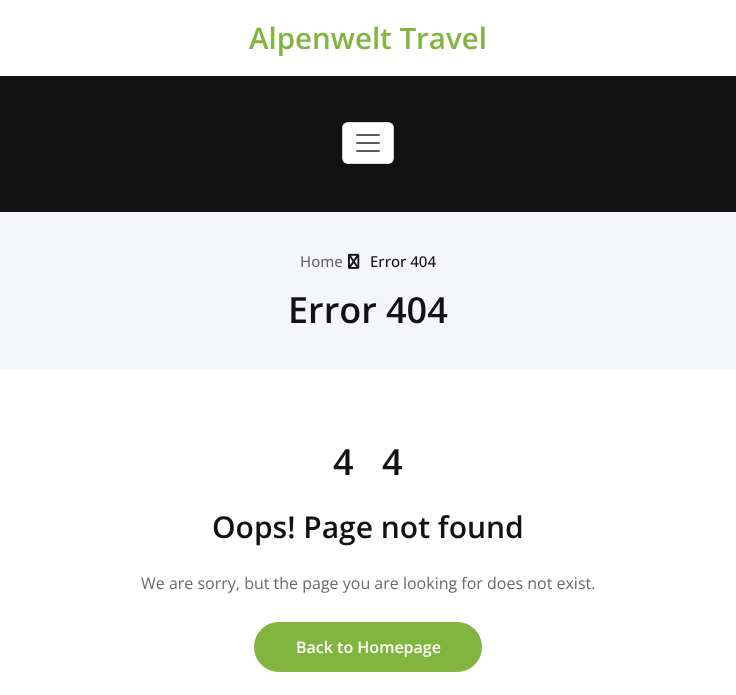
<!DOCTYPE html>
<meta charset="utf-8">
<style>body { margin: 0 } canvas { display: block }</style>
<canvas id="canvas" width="736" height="695"></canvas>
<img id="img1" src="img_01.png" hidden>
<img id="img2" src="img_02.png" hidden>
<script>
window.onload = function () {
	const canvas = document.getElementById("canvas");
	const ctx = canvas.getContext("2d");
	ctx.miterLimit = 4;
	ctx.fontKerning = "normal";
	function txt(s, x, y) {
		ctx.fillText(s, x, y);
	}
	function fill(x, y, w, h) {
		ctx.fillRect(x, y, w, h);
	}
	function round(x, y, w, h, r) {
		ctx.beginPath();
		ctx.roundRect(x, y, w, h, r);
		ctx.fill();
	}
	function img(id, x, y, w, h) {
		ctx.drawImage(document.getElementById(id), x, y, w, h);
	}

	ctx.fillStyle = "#FFFFFF";
	fill(0, 0, 736, 695);
	ctx.fillStyle = "#121213";
	fill(0, 76, 736, 136);
	ctx.fillStyle = "#FFFFFF";
	round(342, 122, 52, 42, 6);
	ctx.beginPath();
	ctx.roundRect(342.5, 122.5, 51, 41, 5.5);
	ctx.strokeStyle = "rgba(0, 0, 0, 0.15)";
	ctx.stroke();
	img("img1", 356, 134, 24, 18);
	ctx.fillStyle = "#F5F6F9";
	fill(0, 212, 736, 158);
	img("img2", 348, 253, 12, 16);
	ctx.fillStyle = "#82B440";
	ctx.beginPath();
	ctx.roundRect(255, 623, 226, 48, 24);
	ctx.fill();
	ctx.strokeStyle = "#82B440";
	ctx.lineWidth = 2;
	ctx.stroke();
	ctx.font = "600 29.5px Open Sans";
	txt("Alpenwelt Travel", 249, 49);
	ctx.font = "500 15px Open Sans";
	ctx.fillStyle = "#6A6A6A";
	txt("Home", 300, 267);
	ctx.fillStyle = "#121212";
	txt("Error 404", 370, 267);
	ctx.font = "600 36px Open Sans";
	txt("Error 404", 288, 323);
	txt("4", 333, 475);
	txt("4", 382, 475);
	ctx.font = "600 30px Open Sans";
	txt("Oops! Page not found", 212, 538);
	ctx.font = "16px Open Sans";
	ctx.fillStyle = "#6A6A6A";
	txt("We are sorry, but the page you are looking for does not exist.", 141, 589);
	ctx.font = "600 16px Open Sans";
	ctx.fillStyle = "#FFFFFF";
	txt("Back to Homepage", 296, 653);
};
</script>
